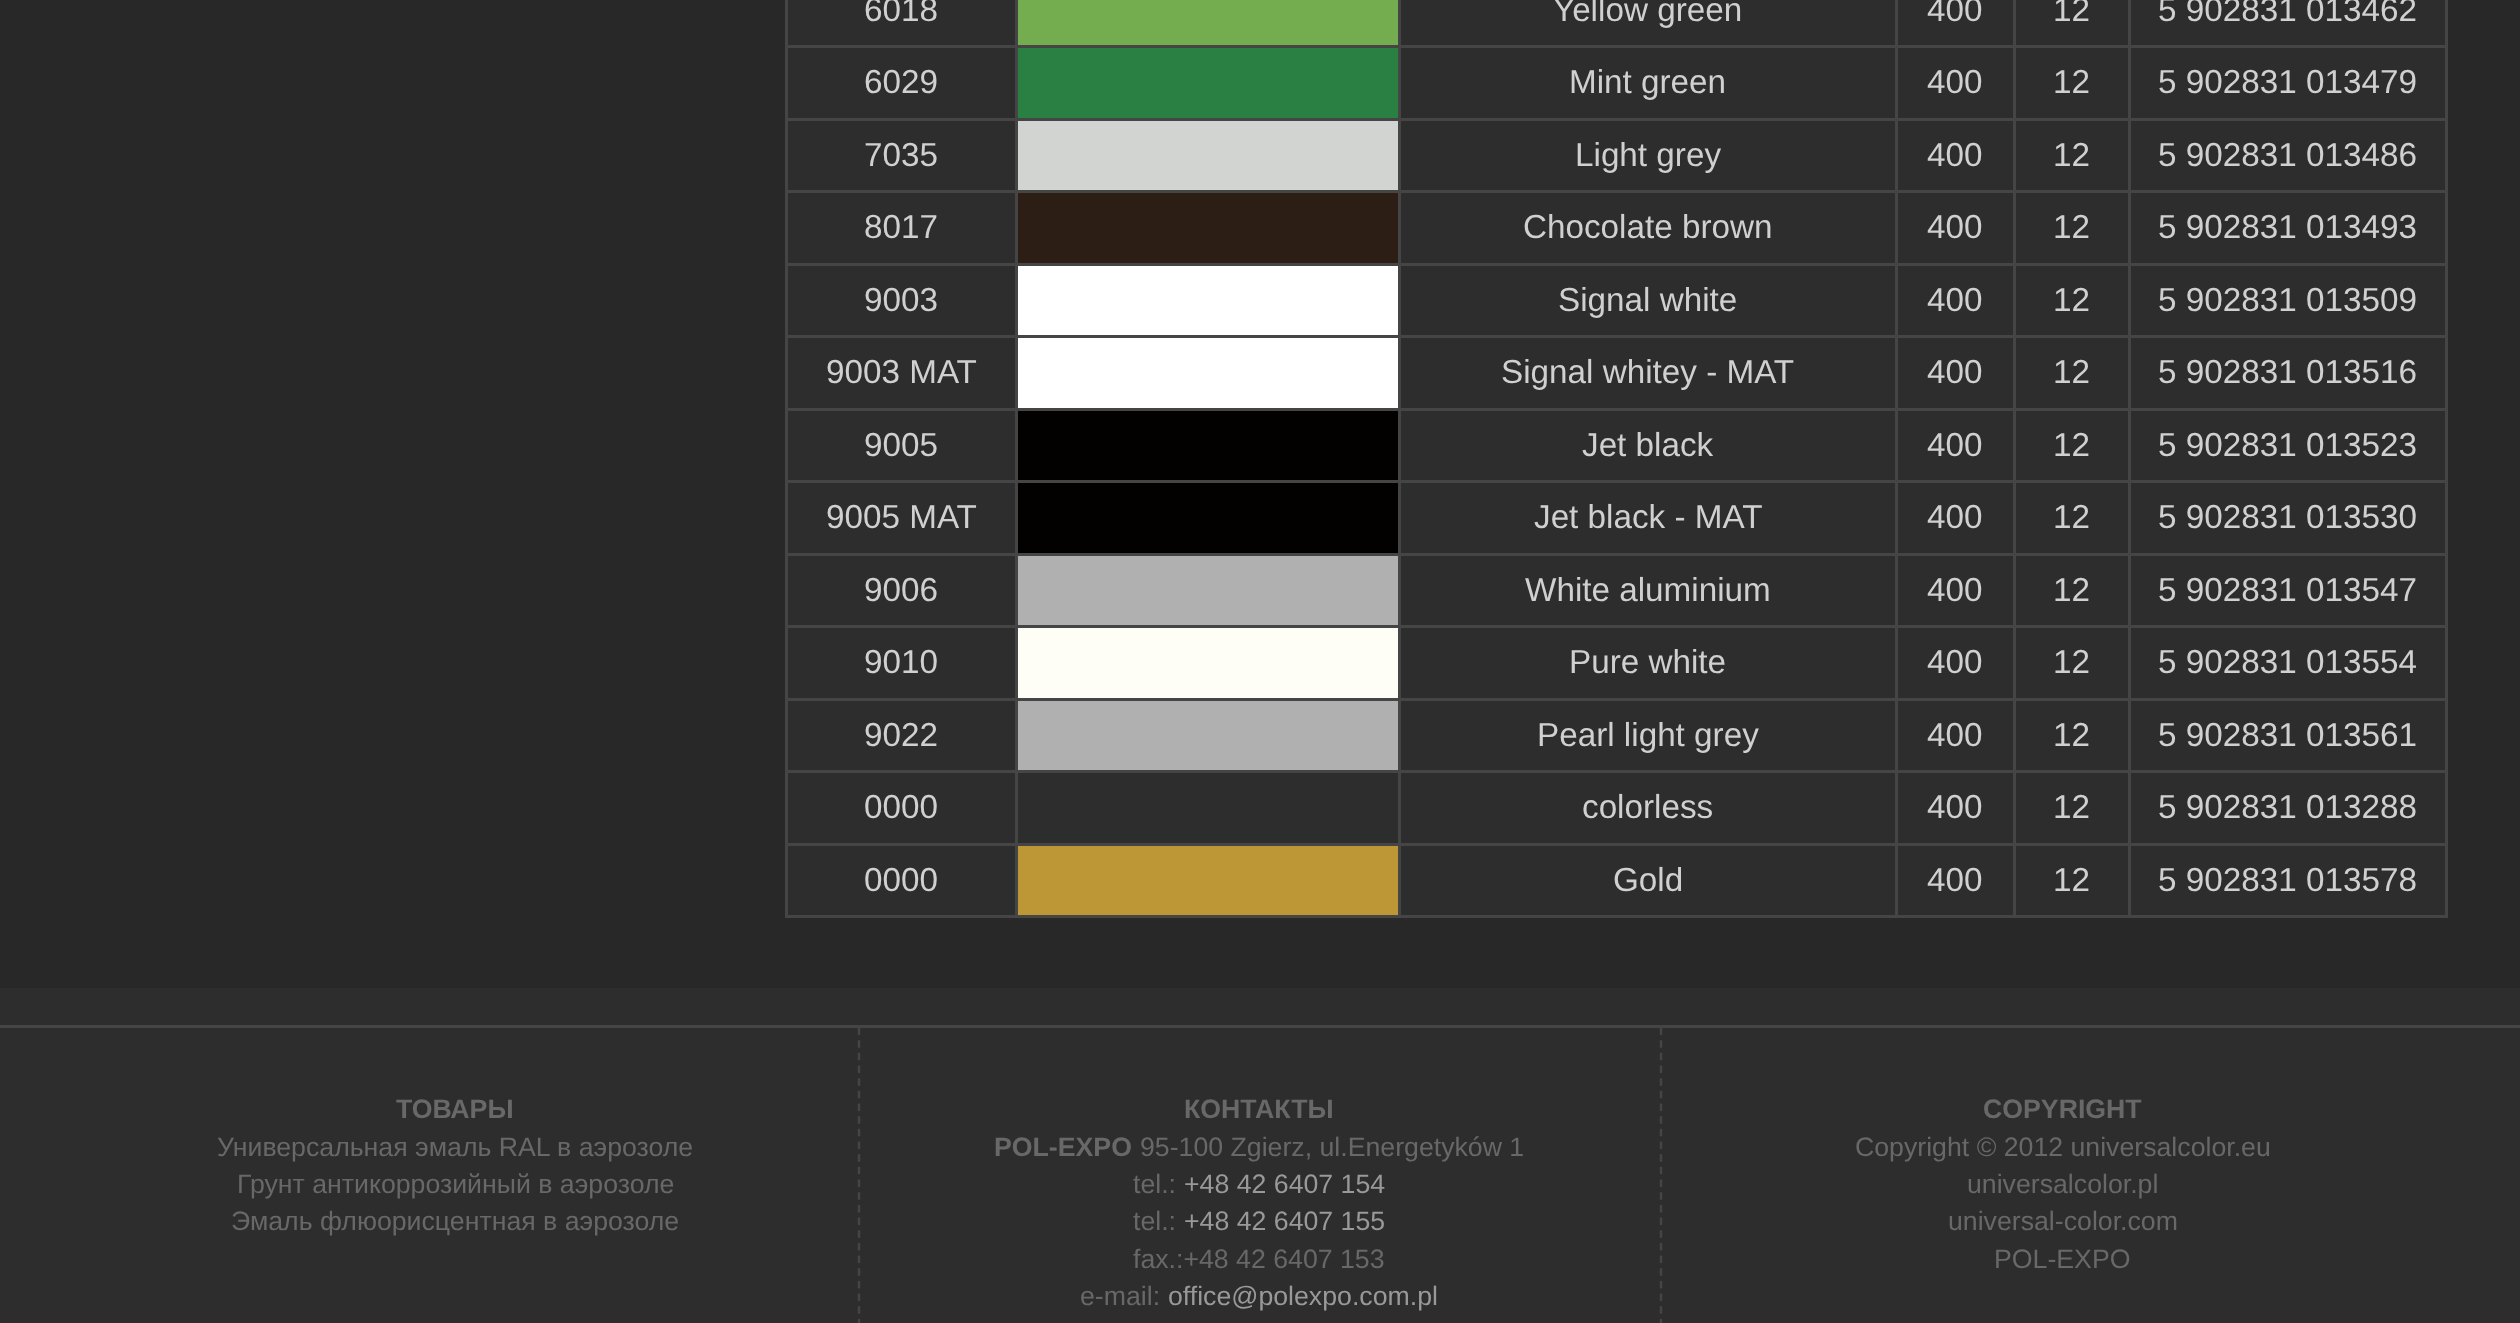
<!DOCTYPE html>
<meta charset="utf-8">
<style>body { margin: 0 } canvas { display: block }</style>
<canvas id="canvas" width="2520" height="1323"></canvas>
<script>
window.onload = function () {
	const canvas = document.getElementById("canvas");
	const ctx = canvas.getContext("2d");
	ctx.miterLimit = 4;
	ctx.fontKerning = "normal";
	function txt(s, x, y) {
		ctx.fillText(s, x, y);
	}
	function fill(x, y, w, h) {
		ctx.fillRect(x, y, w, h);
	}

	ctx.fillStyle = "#2D2D2D";
	fill(0, 0, 2520, 1323);
	ctx.fillStyle = "#282828";
	fill(0, 0, 2520, 988);
	ctx.fillStyle = "#2D2D2D";
	fill(788, 0, 1657, 915);
	ctx.fillStyle = "#454545";
	fill(2445, 0, 3, 918);
	fill(785, 915, 1663, 3);
	fill(785, 0, 3, 918);
	ctx.fillStyle = "#74AD50";
	fill(1018, 0, 380, 45);
	ctx.fillStyle = "#454545";
	fill(785, 45, 1663, 3);
	ctx.fillStyle = "#2A7F42";
	fill(1018, 48, 380, 70);
	ctx.fillStyle = "#454545";
	fill(785, 118, 1663, 3);
	ctx.fillStyle = "#D1D4D1";
	fill(1018, 121, 380, 69);
	ctx.fillStyle = "#454545";
	fill(785, 190, 1663, 3);
	ctx.fillStyle = "#2C1D15";
	fill(1018, 193, 380, 70);
	ctx.fillStyle = "#454545";
	fill(785, 263, 1663, 3);
	ctx.fillStyle = "#FFFFFF";
	fill(1018, 266, 380, 69);
	ctx.fillStyle = "#454545";
	fill(785, 335, 1663, 3);
	ctx.fillStyle = "#FFFFFF";
	fill(1018, 338, 380, 70);
	ctx.fillStyle = "#454545";
	fill(785, 408, 1663, 3);
	ctx.fillStyle = "#030100";
	fill(1018, 411, 380, 69);
	ctx.fillStyle = "#454545";
	fill(785, 480, 1663, 3);
	ctx.fillStyle = "#030100";
	fill(1018, 483, 380, 70);
	ctx.fillStyle = "#454545";
	fill(785, 553, 1663, 3);
	ctx.fillStyle = "#B0B0B0";
	fill(1018, 556, 380, 69);
	ctx.fillStyle = "#454545";
	fill(785, 625, 1663, 3);
	ctx.fillStyle = "#FFFEF6";
	fill(1018, 628, 380, 70);
	ctx.fillStyle = "#454545";
	fill(785, 698, 1663, 3);
	ctx.fillStyle = "#B0B0B0";
	fill(1018, 701, 380, 69);
	ctx.fillStyle = "#454545";
	fill(785, 770, 1663, 3);
	fill(785, 843, 1663, 3);
	fill(1015, 0, 3, 918);
	ctx.fillStyle = "#BD9635";
	fill(1018, 846, 380, 69);
	ctx.fillStyle = "#454545";
	fill(1398, 0, 3, 918);
	fill(1895, 0, 3, 918);
	fill(2013, 0, 3, 918);
	fill(2128, 0, 3, 918);
	fill(0, 1025, 2520, 3);
	ctx.beginPath();
	ctx.moveTo(1661, 1027.5);
	ctx.lineTo(1661, 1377.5);
	ctx.strokeStyle = "#454545";
	ctx.lineWidth = 2.5;
	ctx.setLineDash([7.5, 5.17]);
	ctx.stroke();
	ctx.beginPath();
	ctx.moveTo(859, 1027.5);
	ctx.lineTo(859, 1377.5);
	ctx.stroke();
	ctx.font = "33.25px Liberation Sans";
	ctx.fillStyle = "#D0D0D0";
	txt("6018", 864, 21);
	txt("Yellow green", 1553, 21);
	txt("400", 1927, 21);
	txt("12", 2053, 21);
	txt("5 902831 013462", 2158, 21);
	txt("6029", 864, 93);
	txt("Mint green", 1569, 93);
	txt("400", 1927, 93);
	txt("12", 2053, 93);
	txt("5 902831 013479", 2158, 93);
	txt("7035", 864, 166);
	txt("Light grey", 1575, 166);
	txt("400", 1927, 166);
	txt("12", 2053, 166);
	txt("5 902831 013486", 2158, 166);
	txt("8017", 864, 238);
	txt("Chocolate brown", 1523, 238);
	txt("400", 1927, 238);
	txt("12", 2053, 238);
	txt("5 902831 013493", 2158, 238);
	txt("9003", 864, 311);
	txt("Signal white", 1558, 311);
	txt("400", 1927, 311);
	txt("12", 2053, 311);
	txt("5 902831 013509", 2158, 311);
	txt("9003 MAT", 826, 383);
	txt("Signal whitey - MAT", 1501, 383);
	txt("400", 1927, 383);
	txt("12", 2053, 383);
	txt("5 902831 013516", 2158, 383);
	txt("9005", 864, 456);
	txt("Jet black", 1582, 456);
	txt("400", 1927, 456);
	txt("12", 2053, 456);
	txt("5 902831 013523", 2158, 456);
	txt("9005 MAT", 826, 528);
	txt("Jet black - MAT", 1534, 528);
	txt("400", 1927, 528);
	txt("12", 2053, 528);
	txt("5 902831 013530", 2158, 528);
	txt("9006", 864, 601);
	txt("White aluminium", 1525, 601);
	txt("400", 1927, 601);
	txt("12", 2053, 601);
	txt("5 902831 013547", 2158, 601);
	txt("9010", 864, 673);
	txt("Pure white", 1569, 673);
	txt("400", 1927, 673);
	txt("12", 2053, 673);
	txt("5 902831 013554", 2158, 673);
	txt("9022", 864, 746);
	txt("Pearl light grey", 1537, 746);
	txt("400", 1927, 746);
	txt("12", 2053, 746);
	txt("5 902831 013561", 2158, 746);
	txt("0000", 864, 818);
	txt("colorless", 1582, 818);
	txt("400", 1927, 818);
	txt("12", 2053, 818);
	txt("5 902831 013288", 2158, 818);
	txt("0000", 864, 891);
	txt("Gold", 1613, 891);
	txt("400", 1927, 891);
	txt("12", 2053, 891);
	txt("5 902831 013578", 2158, 891);
	ctx.font = "bold 26.7px Liberation Sans";
	ctx.fillStyle = "#686868";
	txt("ТОВАРЫ", 396, 1118);
	ctx.font = "26.7px Liberation Sans";
	txt("Универсальная эмаль RAL в аэрозоле", 217, 1156);
	txt("Грунт антикоррозийный в аэрозоле", 237, 1193);
	txt("Эмаль флюорисцентная в аэрозоле", 231, 1230);
	ctx.font = "bold 26.7px Liberation Sans";
	txt("КОНТАКТЫ", 1184, 1118);
	txt("POL-EXPO", 994, 1156);
	ctx.font = "26.7px Liberation Sans";
	txt("95-100 Zgierz, ul.Energetyków 1", 1140, 1156);
	txt("tel.:", 1133, 1193);
	ctx.fillStyle = "#999999";
	txt("+48 42 6407 154", 1184, 1193);
	ctx.fillStyle = "#686868";
	txt("tel.:", 1133, 1230);
	ctx.fillStyle = "#999999";
	txt("+48 42 6407 155", 1184, 1230);
	ctx.fillStyle = "#686868";
	txt("fax.:+48 42 6407 153", 1133, 1268);
	txt("e-mail:", 1080, 1305);
	ctx.fillStyle = "#999999";
	txt("office@polexpo.com.pl", 1168, 1305);
	ctx.font = "bold 26.7px Liberation Sans";
	ctx.fillStyle = "#686868";
	txt("COPYRIGHT", 1983, 1118);
	ctx.font = "26.7px Liberation Sans";
	txt("Copyright © 2012 universalcolor.eu", 1855, 1156);
	txt("universalcolor.pl", 1967, 1193);
	txt("universal-color.com", 1948, 1230);
	txt("POL-EXPO", 1994, 1268);
};
</script>
